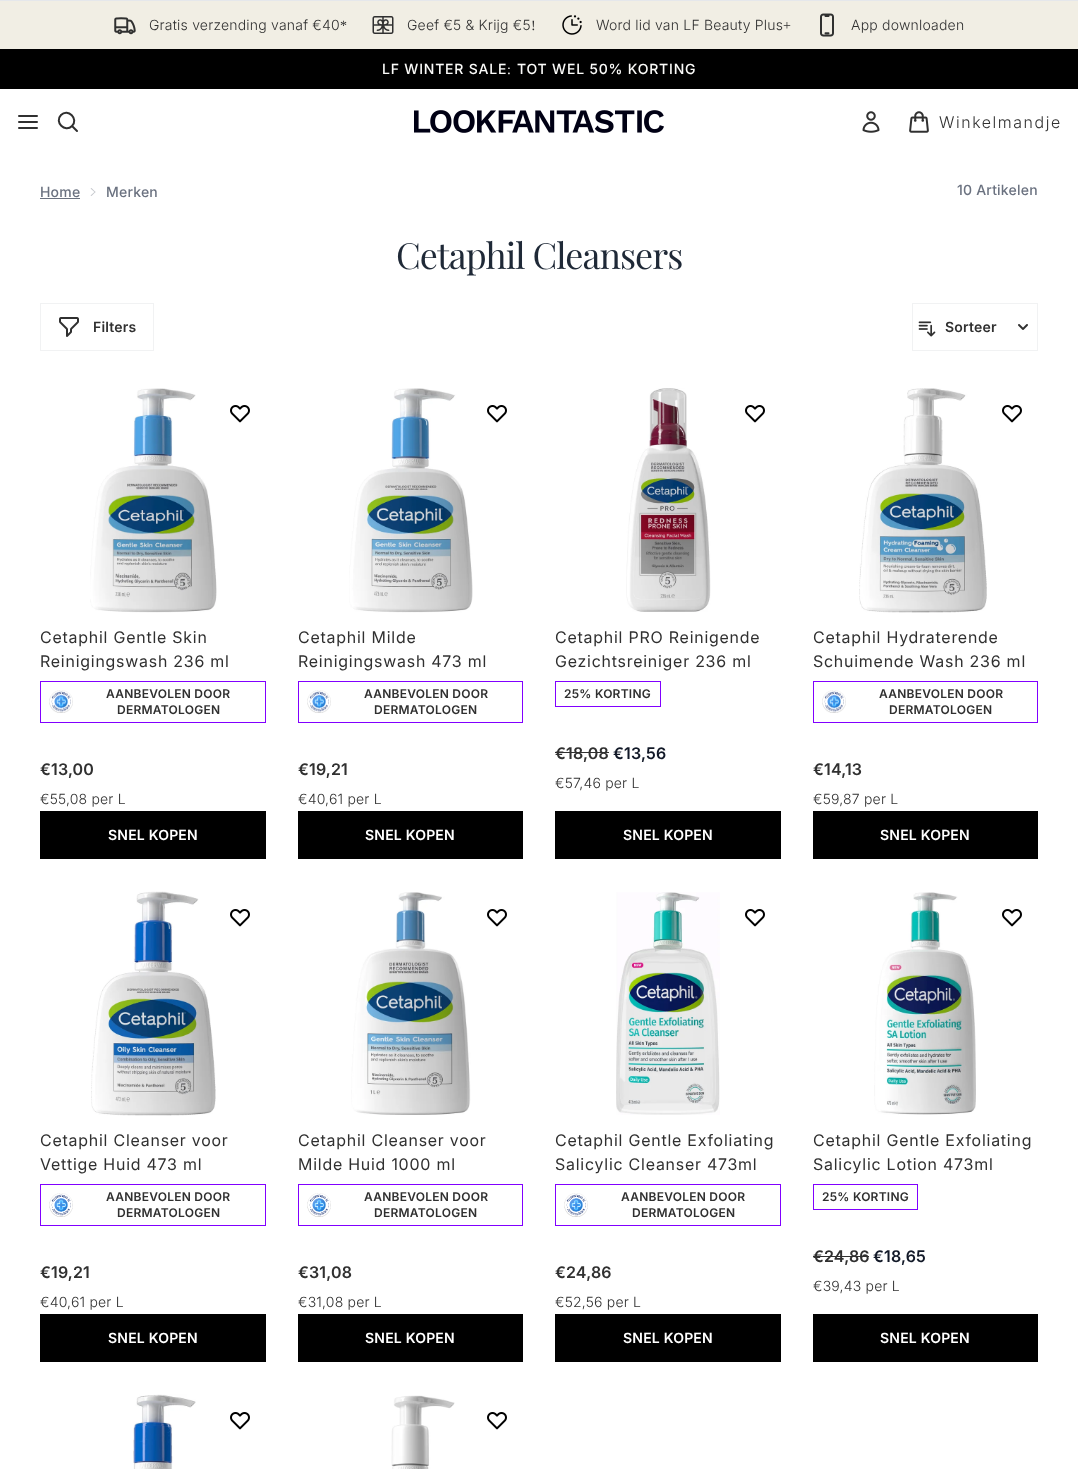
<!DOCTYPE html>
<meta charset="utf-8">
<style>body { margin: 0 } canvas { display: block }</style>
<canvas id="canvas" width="1078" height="1469"></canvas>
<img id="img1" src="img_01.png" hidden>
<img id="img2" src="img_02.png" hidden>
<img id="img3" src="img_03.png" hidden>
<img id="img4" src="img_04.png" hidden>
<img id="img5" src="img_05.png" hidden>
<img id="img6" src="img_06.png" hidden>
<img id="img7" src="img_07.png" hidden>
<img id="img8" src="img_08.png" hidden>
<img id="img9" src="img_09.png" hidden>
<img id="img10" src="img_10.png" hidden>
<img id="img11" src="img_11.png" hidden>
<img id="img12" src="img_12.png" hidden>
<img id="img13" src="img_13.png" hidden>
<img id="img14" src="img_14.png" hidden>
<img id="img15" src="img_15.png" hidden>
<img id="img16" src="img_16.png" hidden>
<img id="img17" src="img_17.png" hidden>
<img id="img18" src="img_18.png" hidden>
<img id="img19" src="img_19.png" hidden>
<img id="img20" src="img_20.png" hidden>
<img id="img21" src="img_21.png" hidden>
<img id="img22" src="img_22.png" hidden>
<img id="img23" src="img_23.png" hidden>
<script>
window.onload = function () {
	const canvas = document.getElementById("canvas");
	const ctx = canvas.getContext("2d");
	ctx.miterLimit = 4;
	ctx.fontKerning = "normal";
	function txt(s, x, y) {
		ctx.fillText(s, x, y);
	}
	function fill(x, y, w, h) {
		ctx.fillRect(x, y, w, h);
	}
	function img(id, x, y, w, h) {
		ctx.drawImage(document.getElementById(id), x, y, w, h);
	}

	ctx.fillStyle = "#FFFFFF";
	fill(0, 0, 1078, 1469);
	ctx.fillStyle = "#F1EEE4";
	fill(0, 1, 1078, 48);
	ctx.fillStyle = "#E5E7EB";
	fill(0, 0, 1078, 1);
	img("img1", 114, 17, 22, 18);
	img("img2", 372, 16, 22, 18);
	img("img3", 562, 15, 20, 20);
	img("img4", 820, 13, 14, 24);
	ctx.fillStyle = "#000000";
	fill(0, 49, 1078, 40);
	ctx.beginPath();
	ctx.moveTo(19, 122);
	ctx.lineTo(37, 122);
	ctx.moveTo(19, 116);
	ctx.lineTo(37, 116);
	ctx.moveTo(19, 128);
	ctx.lineTo(37, 128);
	ctx.moveTo(77, 131);
	ctx.lineTo(72, 126);
	ctx.moveTo(72, 126);
	ctx.bezierCurveTo(79, 119, 68, 108, 61, 115);
	ctx.bezierCurveTo(54, 122, 65, 133, 72, 126);
	ctx.closePath();
	ctx.strokeStyle = "#303030";
	ctx.lineWidth = 2;
	ctx.lineCap = "round";
	ctx.lineJoin = "round";
	ctx.stroke();
	img("img5", 414, 110, 250, 23);
	img("img6", 862, 111, 18, 22);
	img("img7", 909, 111, 20, 22);
	ctx.fillStyle = "#6B7280";
	fill(40, 198, 40, 1);
	ctx.fillStyle = "#C4C7CC";
	ctx.beginPath();
	ctx.moveTo(91.5, 188);
	ctx.lineTo(95.5, 192);
	ctx.lineTo(95, 192.5);
	ctx.lineTo(90.5, 188.5);
	ctx.closePath();
	ctx.fill();
	ctx.beginPath();
	ctx.moveTo(95, 191.5);
	ctx.lineTo(95.5, 192);
	ctx.lineTo(91.5, 196);
	ctx.lineTo(90.5, 195.5);
	ctx.closePath();
	ctx.fill();
	ctx.strokeStyle = "#F1F2F3";
	ctx.lineWidth = 1;
	ctx.lineJoin = "miter";
	ctx.strokeRect(40.5, 303.5, 113, 47);
	img("img8", 59, 317, 20, 20);
	ctx.strokeRect(912.5, 303.5, 125, 47);
	img("img9", 918, 321, 18, 16);
	img("img10", 1018, 324, 10, 6);
	img("img11", 90, 388, 127, 225);
	img("img12", 230, 405, 20, 18);
	ctx.strokeStyle = "#8100FF";
	ctx.strokeRect(40.5, 681.5, 225, 41);
	img("img13", 49, 690, 24, 23);
	ctx.fillStyle = "#000000";
	fill(40, 811, 226, 48);
	img("img14", 349, 388, 124, 225);
	img("img12", 487, 405, 20, 18);
	ctx.strokeRect(298.5, 681.5, 224, 41);
	img("img13", 307, 690, 24, 23);
	fill(298, 811, 225, 48);
	img("img15", 626, 388, 85, 224);
	img("img12", 745, 405, 20, 18);
	ctx.strokeRect(555.5, 681.5, 105, 25);
	ctx.fillStyle = "#303030";
	fill(555, 752, 54, 1);
	ctx.fillStyle = "#000000";
	fill(555, 811, 226, 48);
	img("img16", 859, 388, 128, 225);
	img("img12", 1002, 405, 20, 18);
	ctx.strokeRect(813.5, 681.5, 224, 41);
	img("img13", 822, 690, 24, 23);
	fill(813, 811, 225, 48);
	img("img17", 91, 891, 125, 225);
	img("img12", 230, 909, 20, 18);
	ctx.strokeRect(40.5, 1184.5, 225, 41);
	img("img18", 49, 1193, 24, 24);
	fill(40, 1314, 226, 48);
	img("img19", 351, 892, 120, 223);
	img("img12", 487, 909, 20, 18);
	ctx.strokeRect(298.5, 1184.5, 224, 41);
	img("img18", 307, 1193, 24, 24);
	fill(298, 1314, 225, 48);
	img("img20", 616, 892, 104, 223);
	img("img12", 745, 909, 20, 18);
	ctx.strokeRect(555.5, 1184.5, 225, 41);
	img("img18", 564, 1193, 24, 24);
	fill(555, 1314, 226, 48);
	img("img21", 874, 892, 102, 223);
	img("img12", 1002, 909, 20, 18);
	ctx.strokeRect(813.5, 1184.5, 104, 25);
	ctx.fillStyle = "#303030";
	fill(813, 1256, 56, 1);
	ctx.fillStyle = "#000000";
	fill(813, 1314, 225, 48);
	img("img22", 133, 1394, 63, 75);
	img("img12", 230, 1412, 20, 18);
	img("img23", 391, 1395, 64, 74);
	img("img12", 487, 1412, 20, 18);
	ctx.letterSpacing = "0.2px";
	ctx.font = "300 14px Inter";
	ctx.fillStyle = "#303030";
	txt("Gratis verzending vanaf €40", 149, 30);
	ctx.font = "14px Liberation Serif";
	txt("*", 340, 30);
	ctx.font = "300 14px Inter";
	txt("Geef €5 & Krijg €5", 407, 30);
	ctx.font = "14px Liberation Serif";
	txt("!", 531, 30);
	ctx.font = "300 14px Inter";
	txt("Word lid van LF Beauty Plus", 596, 30);
	ctx.font = "14px Liberation Serif";
	txt("+", 783, 30);
	ctx.font = "300 14px Inter";
	txt("App downloaden", 851, 30);
	ctx.letterSpacing = "0.8px";
	ctx.font = "500 14px Inter";
	ctx.fillStyle = "#FBFBF9";
	txt("LF WINTER SALE", 382, 74);
	ctx.font = "14px Liberation Serif";
	txt(":", 507, 74);
	ctx.font = "500 14px Inter";
	txt("TOT WEL 50% KORTING", 517, 74);
	ctx.letterSpacing = "1.6px";
	ctx.font = "300 16px 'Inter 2'";
	ctx.fillStyle = "#303030";
	txt("Winkelmandje", 939, 128);
	ctx.letterSpacing = "0.2px";
	ctx.font = "500 14px Inter";
	ctx.fillStyle = "#6B7280";
	txt("Home", 40, 197);
	txt("Merken", 106, 197);
	txt("10 Artikelen", 957, 195);
	ctx.letterSpacing = "-1px";
	ctx.font = "36px Playfair Display";
	ctx.fillStyle = "#1F2937";
	txt("Cetaphil Cleansers", 396, 269);
	ctx.letterSpacing = "0.2px";
	ctx.font = "600 14px Inter";
	ctx.fillStyle = "#303030";
	txt("Filters", 93, 332);
	txt("Sorteer", 945, 332);
	ctx.letterSpacing = "0.8px";
	ctx.font = "16px Inter";
	txt("Cetaphil Gentle Skin", 40, 643);
	txt("Reinigingswash 236 ml", 40, 667);
	ctx.letterSpacing = "0.25px";
	ctx.font = "600 12px Inter";
	txt("AANBEVOLEN DOOR", 106, 698);
	txt("DERMATOLOGEN", 117, 714);
	ctx.letterSpacing = "0.2px";
	ctx.font = "600 16px 'Inter 2'";
	txt("€13,00", 40, 775);
	ctx.font = "300 14px Inter";
	txt("€55,08 per L", 40, 804);
	ctx.font = "600 14px Inter";
	ctx.fillStyle = "#FFFFFF";
	txt("SNEL KOPEN", 108, 840);
	ctx.letterSpacing = "0.8px";
	ctx.font = "16px Inter";
	ctx.fillStyle = "#303030";
	txt("Cetaphil Milde", 298, 643);
	txt("Reinigingswash 473 ml", 298, 667);
	ctx.letterSpacing = "0.25px";
	ctx.font = "600 12px Inter";
	txt("AANBEVOLEN DOOR", 364, 698);
	txt("DERMATOLOGEN", 374, 714);
	ctx.letterSpacing = "0.2px";
	ctx.font = "600 16px 'Inter 2'";
	txt("€19,21", 298, 775);
	ctx.font = "300 14px Inter";
	txt("€40,61 per L", 298, 804);
	ctx.font = "600 14px Inter";
	ctx.fillStyle = "#FFFFFF";
	txt("SNEL KOPEN", 365, 840);
	ctx.letterSpacing = "0.8px";
	ctx.font = "16px Inter";
	ctx.fillStyle = "#303030";
	txt("Cetaphil PRO Reinigende", 555, 643);
	txt("Gezichtsreiniger 236 ml", 555, 667);
	ctx.letterSpacing = "0.25px";
	ctx.font = "600 12px Inter";
	txt("25% KORTING", 564, 698);
	ctx.letterSpacing = "0.2px";
	ctx.font = "600 16px 'Inter 2'";
	txt("€18,08", 555, 759);
	ctx.fillStyle = "#111827";
	txt("€13,56", 613, 759);
	ctx.font = "300 14px Inter";
	ctx.fillStyle = "#303030";
	txt("€57,46 per L", 555, 788);
	ctx.font = "600 14px Inter";
	ctx.fillStyle = "#FFFFFF";
	txt("SNEL KOPEN", 623, 840);
	ctx.letterSpacing = "0.8px";
	ctx.font = "16px Inter";
	ctx.fillStyle = "#303030";
	txt("Cetaphil Hydraterende", 813, 643);
	txt("Schuimende Wash 236 ml", 813, 667);
	ctx.letterSpacing = "0.25px";
	ctx.font = "600 12px Inter";
	txt("AANBEVOLEN DOOR", 879, 698);
	txt("DERMATOLOGEN", 889, 714);
	ctx.letterSpacing = "0.2px";
	ctx.font = "600 16px 'Inter 2'";
	txt("€14,13", 813, 775);
	ctx.font = "300 14px Inter";
	txt("€59,87 per L", 813, 804);
	ctx.font = "600 14px Inter";
	ctx.fillStyle = "#FFFFFF";
	txt("SNEL KOPEN", 880, 840);
	ctx.letterSpacing = "0.8px";
	ctx.font = "16px Inter";
	ctx.fillStyle = "#303030";
	txt("Cetaphil Cleanser voor", 40, 1146);
	txt("Vettige Huid 473 ml", 40, 1170);
	ctx.letterSpacing = "0.25px";
	ctx.font = "600 12px Inter";
	txt("AANBEVOLEN DOOR", 106, 1201);
	txt("DERMATOLOGEN", 117, 1217);
	ctx.letterSpacing = "0.2px";
	ctx.font = "600 16px 'Inter 2'";
	txt("€19,21", 40, 1278);
	ctx.font = "300 14px Inter";
	txt("€40,61 per L", 40, 1307);
	ctx.font = "600 14px Inter";
	ctx.fillStyle = "#FFFFFF";
	txt("SNEL KOPEN", 108, 1343);
	ctx.letterSpacing = "0.8px";
	ctx.font = "16px Inter";
	ctx.fillStyle = "#303030";
	txt("Cetaphil Cleanser voor", 298, 1146);
	txt("Milde Huid 1000 ml", 298, 1170);
	ctx.letterSpacing = "0.25px";
	ctx.font = "600 12px Inter";
	txt("AANBEVOLEN DOOR", 364, 1201);
	txt("DERMATOLOGEN", 374, 1217);
	ctx.letterSpacing = "0.2px";
	ctx.font = "600 16px 'Inter 2'";
	txt("€31,08", 298, 1278);
	ctx.font = "300 14px Inter";
	txt("€31,08 per L", 298, 1307);
	ctx.font = "600 14px Inter";
	ctx.fillStyle = "#FFFFFF";
	txt("SNEL KOPEN", 365, 1343);
	ctx.letterSpacing = "0.8px";
	ctx.font = "16px Inter";
	ctx.fillStyle = "#303030";
	txt("Cetaphil Gentle Exfoliating", 555, 1146);
	txt("Salicylic Cleanser 473ml", 555, 1170);
	ctx.letterSpacing = "0.25px";
	ctx.font = "600 12px Inter";
	txt("AANBEVOLEN DOOR", 621, 1201);
	txt("DERMATOLOGEN", 632, 1217);
	ctx.letterSpacing = "0.2px";
	ctx.font = "600 16px 'Inter 2'";
	txt("€24,86", 555, 1278);
	ctx.font = "300 14px Inter";
	txt("€52,56 per L", 555, 1307);
	ctx.font = "600 14px Inter";
	ctx.fillStyle = "#FFFFFF";
	txt("SNEL KOPEN", 623, 1343);
	ctx.letterSpacing = "0.8px";
	ctx.font = "16px Inter";
	ctx.fillStyle = "#303030";
	txt("Cetaphil Gentle Exfoliating", 813, 1146);
	txt("Salicylic Lotion 473ml", 813, 1170);
	ctx.letterSpacing = "0.25px";
	ctx.font = "600 12px Inter";
	txt("25% KORTING", 822, 1201);
	ctx.letterSpacing = "0.2px";
	ctx.font = "600 16px 'Inter 2'";
	txt("€24,86", 813, 1262);
	ctx.fillStyle = "#111827";
	txt("€18,65", 873, 1262);
	ctx.font = "300 14px Inter";
	ctx.fillStyle = "#303030";
	txt("€39,43 per L", 813, 1291);
	ctx.font = "600 14px Inter";
	ctx.fillStyle = "#FFFFFF";
	txt("SNEL KOPEN", 880, 1343);
};
</script>
